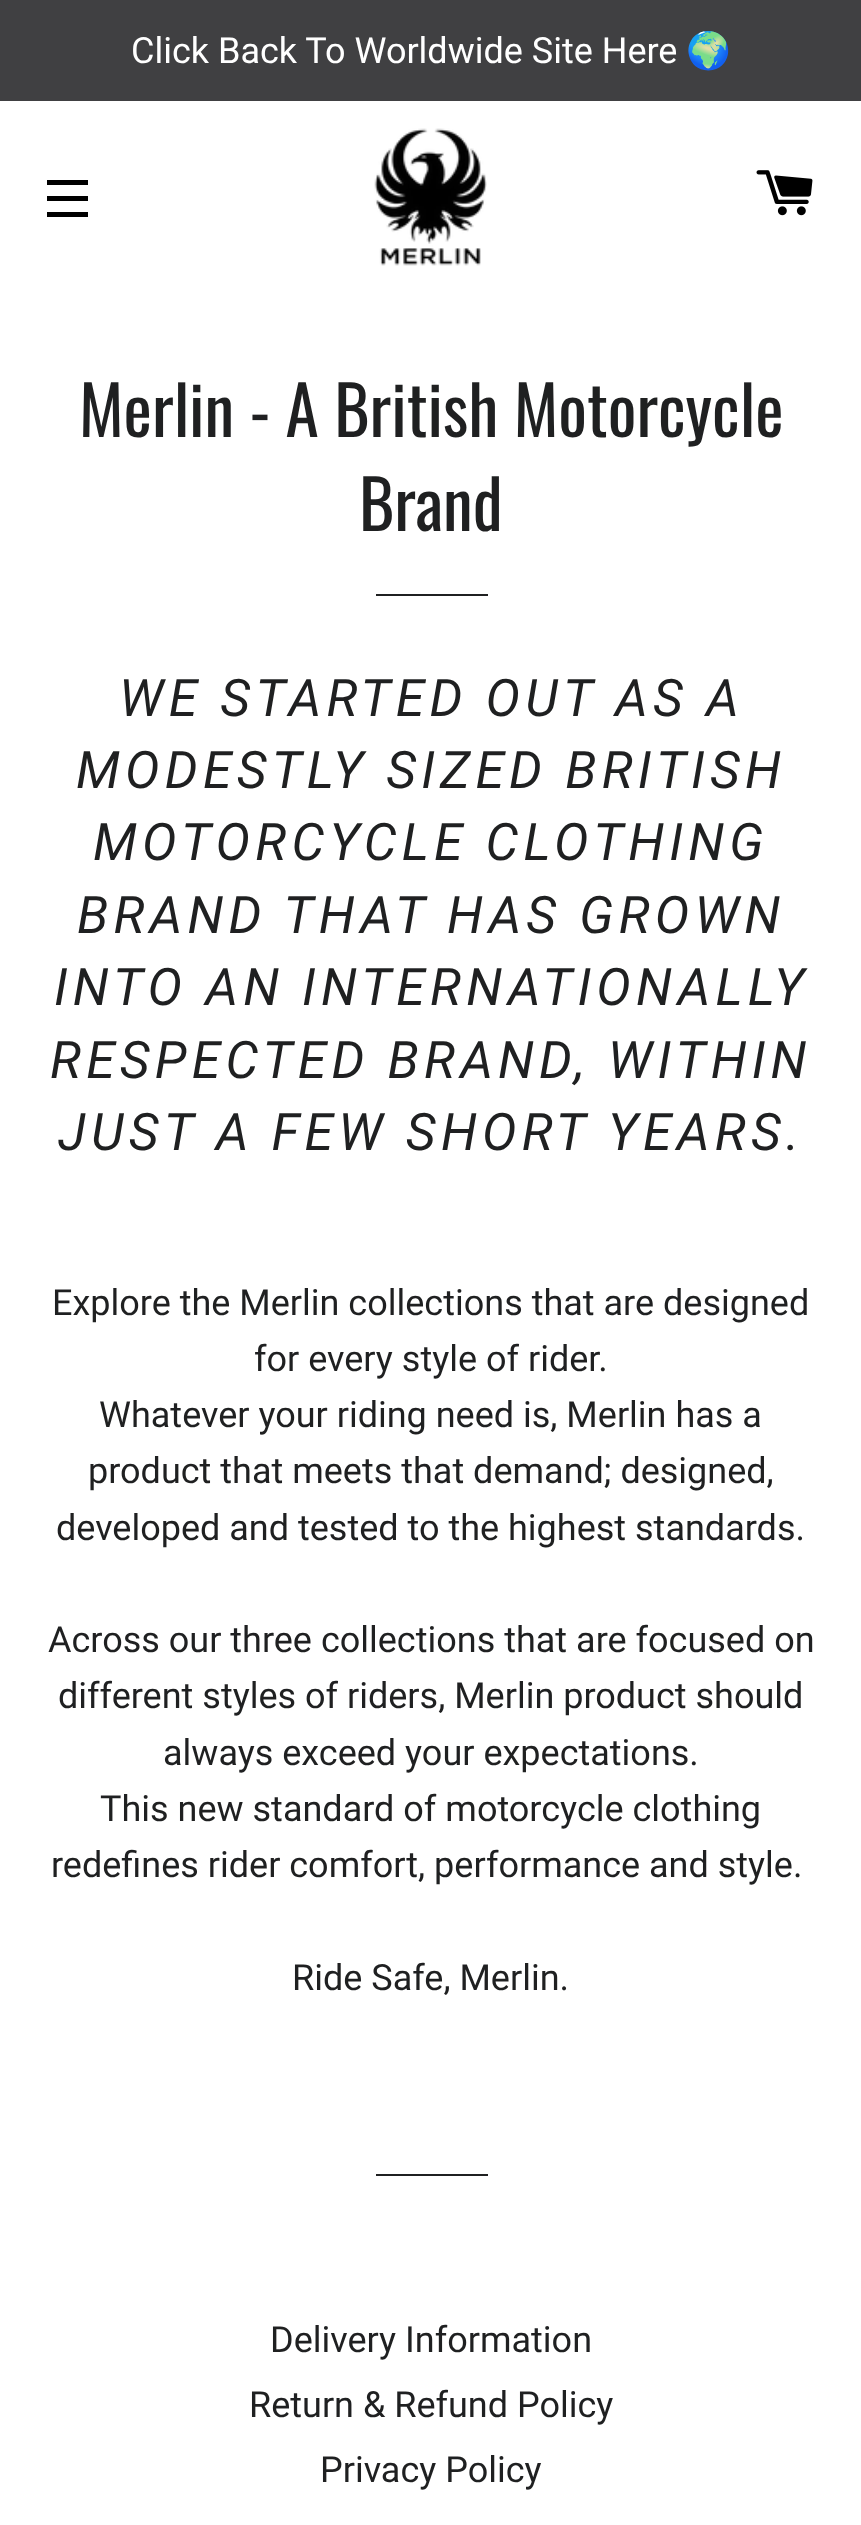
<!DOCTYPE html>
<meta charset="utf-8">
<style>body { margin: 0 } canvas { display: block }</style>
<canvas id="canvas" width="861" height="2525"></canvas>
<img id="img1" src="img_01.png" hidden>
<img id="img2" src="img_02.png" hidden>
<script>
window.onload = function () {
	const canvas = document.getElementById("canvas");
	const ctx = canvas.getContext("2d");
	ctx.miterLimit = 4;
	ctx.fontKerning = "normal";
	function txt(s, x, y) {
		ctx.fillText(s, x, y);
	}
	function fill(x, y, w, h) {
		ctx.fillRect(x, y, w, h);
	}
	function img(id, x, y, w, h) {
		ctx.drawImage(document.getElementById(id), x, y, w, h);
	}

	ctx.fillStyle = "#FFFFFF";
	fill(0, 0, 861, 2525);
	ctx.fillStyle = "#404042";
	fill(0, 0, 861, 101);
	ctx.fillStyle = "#000000";
	fill(47, 180, 41, 5);
	fill(47, 196, 41, 5);
	fill(47, 212, 41, 5);
	img("img1", 374, 128, 113, 138);
	img("img2", 756, 170, 57, 46);
	ctx.fillStyle = "#1F2021";
	fill(376, 594, 112, 2);
	fill(376, 2174, 112, 2);
	ctx.font = "36px Roboto";
	ctx.fillStyle = "#FFFFFF";
	txt("Click Back To Worldwide Site Here", 131, 63);
	ctx.font = "36px Noto Color Emoji";
	txt("🌍", 686, 63);
	ctx.font = "67.5px Oswald";
	ctx.fillStyle = "#1F2021";
	txt("Merlin - A British Motorcycle", 79, 437);
	txt("Brand", 359, 531);
	ctx.letterSpacing = "5.2px";
	ctx.font = "italic 51.75px Roboto";
	txt("WE STARTED OUT AS A", 119, 716);
	txt("MODESTLY SIZED BRITISH", 76, 788);
	txt("MOTORCYCLE CLOTHING", 93, 860);
	txt("BRAND THAT HAS GROWN", 77, 933);
	txt("INTO AN INTERNATIONALLY", 54, 1005);
	txt("RESPECTED BRAND, WITHIN", 50, 1078);
	txt("JUST A FEW SHORT YEARS.", 58, 1150);
	ctx.letterSpacing = "0px";
	ctx.font = "36px Roboto";
	txt("Explore the Merlin collections that are designed", 52, 1315);
	txt("for every style of rider.", 254, 1371);
	txt("Whatever your riding need is, Merlin has a", 99, 1427);
	txt("product that meets that demand; designed,", 88, 1483);
	txt("developed and tested to the highest standards.", 56, 1540);
	txt("Across our three collections that are focused on", 48, 1652);
	txt("different styles of riders, Merlin product should", 58, 1708);
	txt("always exceed your expectations.", 163, 1765);
	txt("This new standard of motorcycle clothing", 100, 1821);
	txt("redefines rider comfort, performance and style.", 51, 1877);
	txt("Ride Safe, Merlin.", 292, 1990);
	txt("Delivery Information", 270, 2352);
	txt("Return & Refund Policy", 249, 2417);
	txt("Privacy Policy", 320, 2482);
};
</script>
